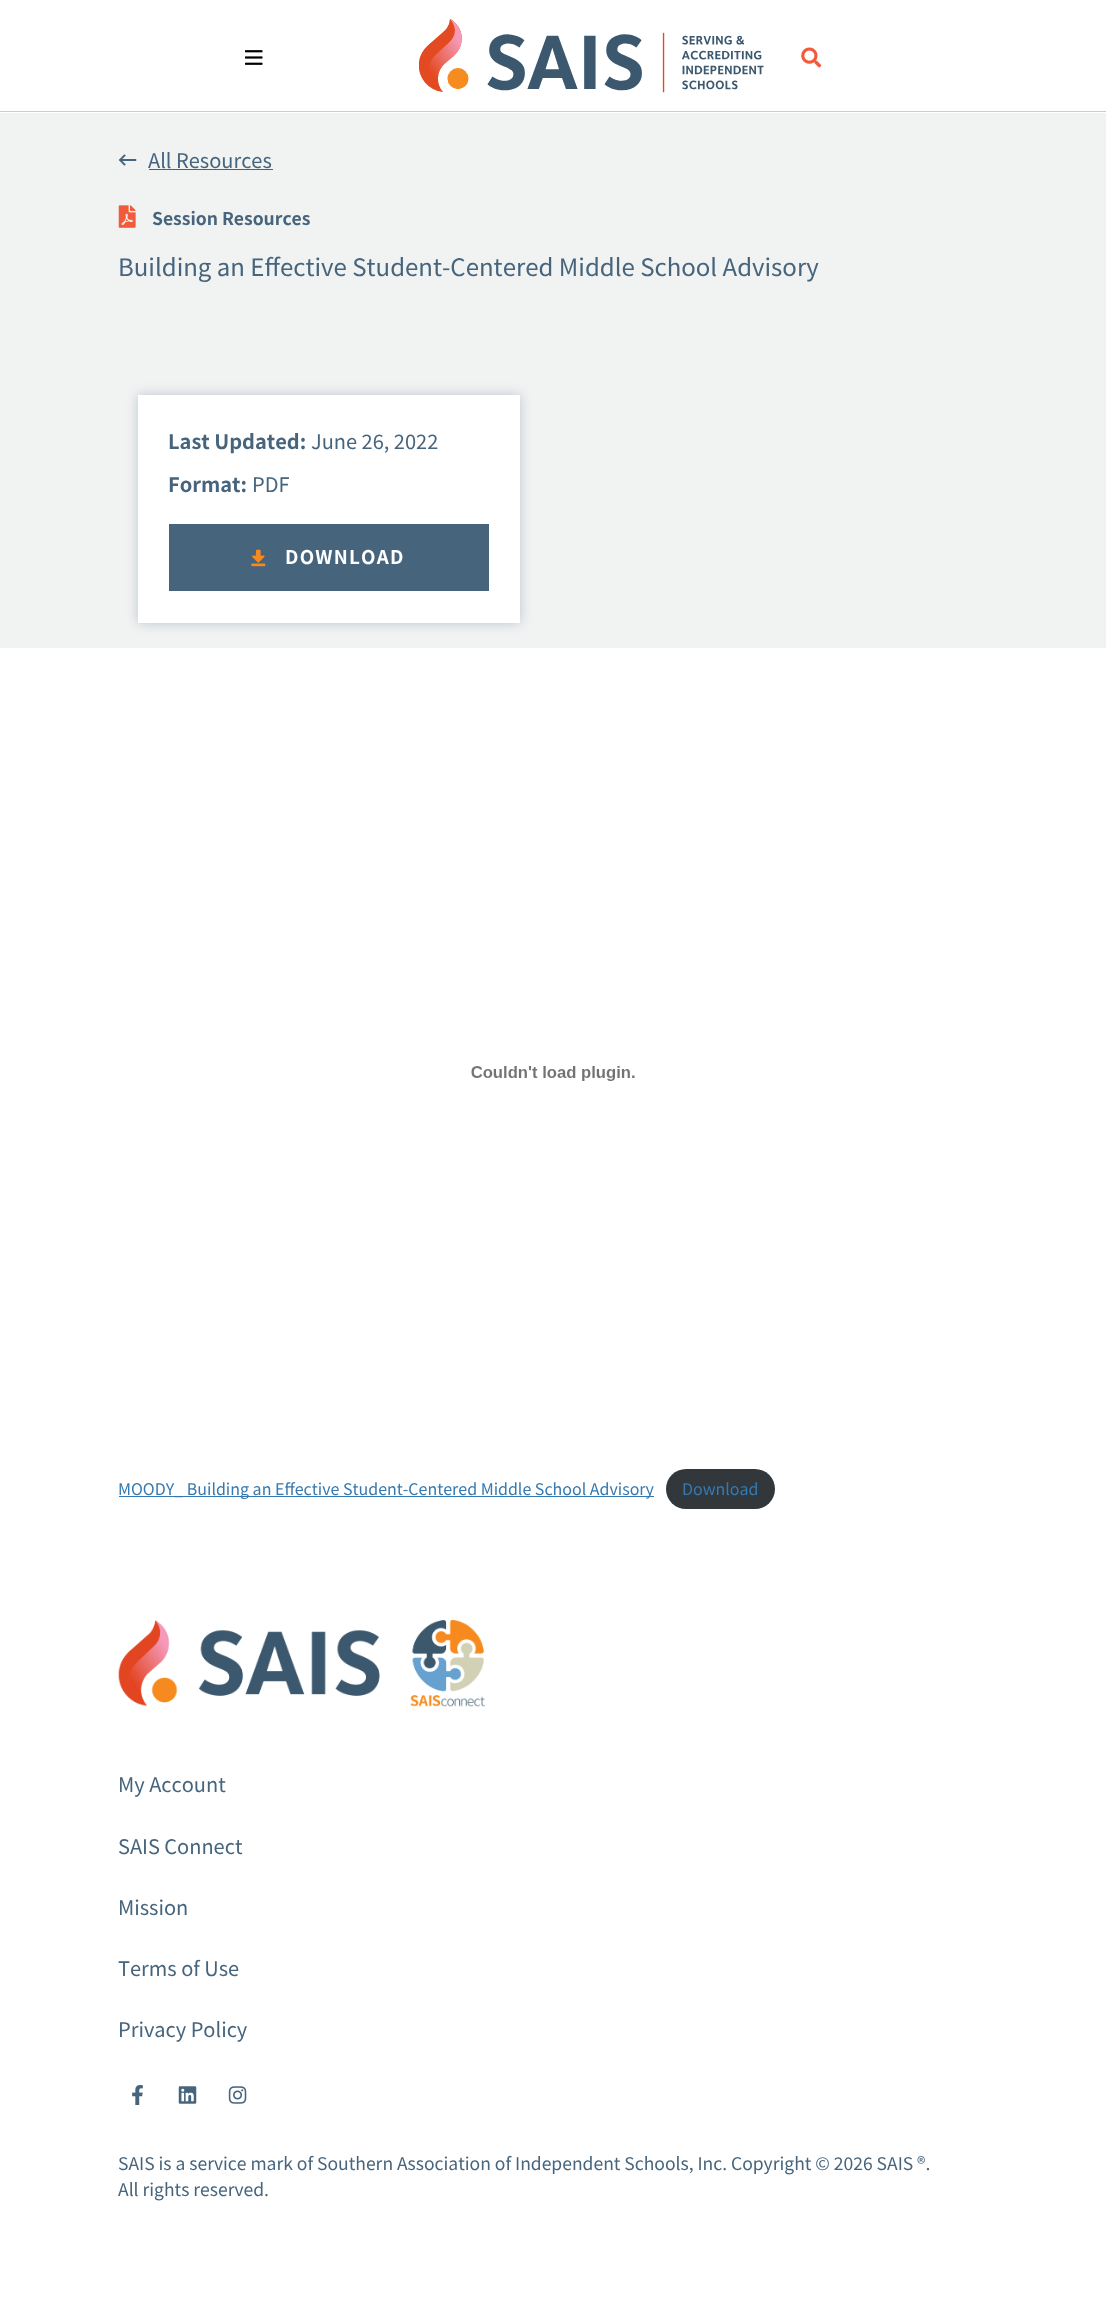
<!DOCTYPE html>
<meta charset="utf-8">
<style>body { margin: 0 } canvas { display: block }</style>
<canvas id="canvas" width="1106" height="2315"></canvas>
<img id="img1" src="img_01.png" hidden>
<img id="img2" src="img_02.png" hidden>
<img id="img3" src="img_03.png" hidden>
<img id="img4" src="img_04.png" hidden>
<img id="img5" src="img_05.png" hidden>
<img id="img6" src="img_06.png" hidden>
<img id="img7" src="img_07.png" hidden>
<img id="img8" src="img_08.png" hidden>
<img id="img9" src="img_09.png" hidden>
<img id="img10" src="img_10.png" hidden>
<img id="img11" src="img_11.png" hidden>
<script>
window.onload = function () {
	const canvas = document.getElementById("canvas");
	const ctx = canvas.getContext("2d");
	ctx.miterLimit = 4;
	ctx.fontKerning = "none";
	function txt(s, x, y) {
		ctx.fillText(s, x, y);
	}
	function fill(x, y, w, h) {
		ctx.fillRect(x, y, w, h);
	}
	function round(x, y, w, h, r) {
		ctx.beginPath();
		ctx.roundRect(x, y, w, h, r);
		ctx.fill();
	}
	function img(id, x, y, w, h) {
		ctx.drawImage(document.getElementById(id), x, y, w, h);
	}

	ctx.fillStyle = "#FFFFFF";
	fill(0, 0, 1106, 2315);
	ctx.fillStyle = "#CBCBCB";
	fill(0, 111, 1106, 1);
	img("img1", 245, 50, 18, 15);
	img("img2", 419, 19, 345, 74);
	img("img3", 801, 47, 21, 21);
	ctx.fillStyle = "#F1F2F2";
	fill(0, 113, 1106, 535);
	img("img4", 118, 154, 19, 12);
	ctx.fillStyle = "#46657D";
	fill(149, 169, 124, 1);
	img("img5", 118, 205, 18, 23);
	ctx.fillStyle = "rgba(70, 101, 125, 0.3)";
	ctx.filter = "blur(6px)";
	ctx.beginPath();
	ctx.rect(138, 395, 382, 228);
	ctx.fill();
	ctx.filter = "none";
	ctx.fillStyle = "#FFFFFF";
	fill(138, 395, 382, 228);
	ctx.fillStyle = "#46657D";
	fill(169, 524, 320, 67);
	img("img6", 251, 549, 15, 18);
	img("img7", 471, 1066, 164, 15);
	ctx.fillStyle = "#3679B0";
	fill(119, 1496, 535, 1);
	ctx.fillStyle = "#32373C";
	round(666, 1469, 109, 40, 20);
	img("img8", 118, 1620, 367, 87);
	img("img9", 132, 2085, 11, 20);
	img("img10", 178, 2086, 19, 18);
	img("img11", 228, 2086, 19, 18);
	ctx.font = "20px Noto Sans JP";
	ctx.fillStyle = "#46657D";
	txt("All Resources", 148, 168);
	ctx.font = "bold 17.5px Noto Sans JP";
	txt("Session Resources", 152, 225);
	ctx.font = "24px Noto Sans JP";
	txt("Building an Effective Student-Centered Middle School Advisory", 118, 276);
	ctx.font = "bold 20px Noto Sans JP";
	txt("Last Updated:", 168, 449);
	ctx.font = "20px Noto Sans JP";
	txt("June 26, 2022", 311, 449);
	ctx.font = "bold 20px Noto Sans JP";
	txt("Format:", 168, 492);
	ctx.font = "20px Noto Sans JP";
	txt("PDF", 252, 492);
	ctx.letterSpacing = "1.25px";
	ctx.font = "bold 18.75px Noto Sans JP";
	ctx.fillStyle = "#FFFFFF";
	txt("DOWNLOAD", 285, 564);
	ctx.letterSpacing = "0px";
	ctx.font = "16px Noto Sans JP";
	ctx.fillStyle = "#3679B0";
	txt("MOODY_ Building an Effective Student-Centered Middle School Advisory", 118, 1495);
	txt("Download", 682, 1495);
	ctx.font = "20px Noto Sans JP";
	ctx.fillStyle = "#46657D";
	txt("My Account", 118, 1792);
	txt("SAIS Connect", 118, 1854);
	txt("Mission", 118, 1915);
	txt("Terms of Use", 118, 1976);
	txt("Privacy Policy", 118, 2037);
	ctx.font = "17.5px Noto Sans JP";
	txt("SAIS is a service mark of Southern Association of Independent Schools, Inc. Copyright © 2026 SAIS ®.", 118, 2170);
	txt("All rights reserved.", 118, 2196);
};
</script>
